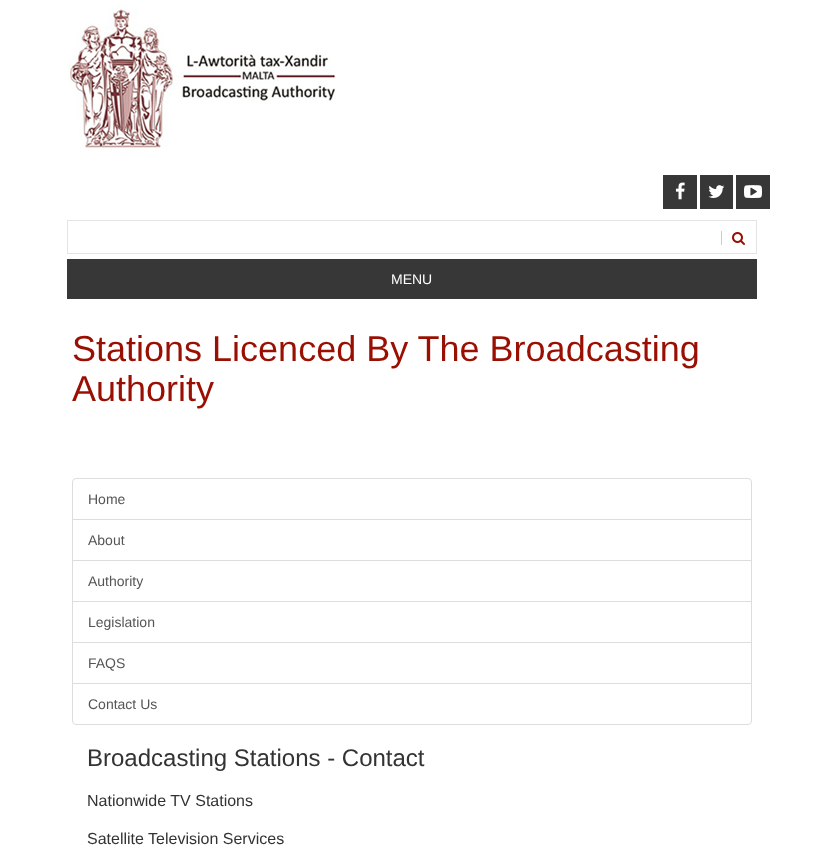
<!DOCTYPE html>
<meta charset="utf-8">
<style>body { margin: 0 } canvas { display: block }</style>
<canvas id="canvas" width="823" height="864"></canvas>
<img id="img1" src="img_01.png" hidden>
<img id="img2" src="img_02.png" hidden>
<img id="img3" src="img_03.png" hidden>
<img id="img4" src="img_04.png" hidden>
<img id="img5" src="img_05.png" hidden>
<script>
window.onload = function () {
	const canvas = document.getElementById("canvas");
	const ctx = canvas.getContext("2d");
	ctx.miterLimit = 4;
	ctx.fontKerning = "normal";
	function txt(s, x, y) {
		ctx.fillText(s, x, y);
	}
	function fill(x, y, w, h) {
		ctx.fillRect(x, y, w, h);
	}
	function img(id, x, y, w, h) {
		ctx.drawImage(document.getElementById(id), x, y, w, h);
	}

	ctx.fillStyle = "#FFFFFF";
	fill(0, 0, 823, 864);
	img("img1", 68, 5, 268, 144);
	ctx.fillStyle = "#373737";
	fill(663, 175, 34, 34);
	img("img2", 675, 182, 10, 18);
	fill(700, 175, 33, 34);
	img("img3", 708, 185, 17, 13);
	fill(736, 175, 34, 34);
	img("img4", 744, 185, 18, 13);
	ctx.strokeStyle = "#E4E4E4";
	ctx.strokeRect(67.5, 220.5, 689, 33);
	ctx.fillStyle = "#CCCCCC";
	fill(721, 231, 1, 14);
	img("img5", 732, 232, 13, 13);
	ctx.fillStyle = "#373737";
	fill(67, 259, 690, 40);
	ctx.beginPath();
	ctx.roundRect(72.5, 478.5, 679, 41, [3.5, 3.5, 0, 0]);
	ctx.strokeStyle = "#DDDDDD";
	ctx.stroke();
	ctx.strokeRect(72.5, 519.5, 679, 41);
	ctx.strokeRect(72.5, 560.5, 679, 41);
	ctx.strokeRect(72.5, 601.5, 679, 41);
	ctx.strokeRect(72.5, 642.5, 679, 41);
	ctx.fillStyle = "#FFFFFF";
	ctx.beginPath();
	ctx.roundRect(72.5, 683.5, 679, 41, [0, 0, 3.5, 3.5]);
	ctx.fill();
	ctx.stroke();
	ctx.font = "14px Liberation Sans";
	txt("MENU", 391, 284);
	ctx.font = "36px Liberation Sans";
	ctx.fillStyle = "#990F02";
	txt("Stations Licenced By The Broadcasting", 72, 361);
	txt("Authority", 72, 401);
	ctx.font = "14px Liberation Sans";
	ctx.fillStyle = "#555555";
	txt("Home", 88, 504);
	txt("About", 88, 545);
	txt("Authority", 88, 586);
	txt("Legislation", 88, 627);
	txt("FAQS", 88, 668);
	txt("Contact Us", 88, 709);
	ctx.font = "24px Liberation Sans";
	ctx.fillStyle = "#333333";
	txt("Broadcasting Stations - Contact", 87, 766);
	ctx.font = "16px Liberation Sans";
	txt("Nationwide TV Stations", 87, 806);
	txt("Satellite Television Services", 87, 844);
};
</script>
